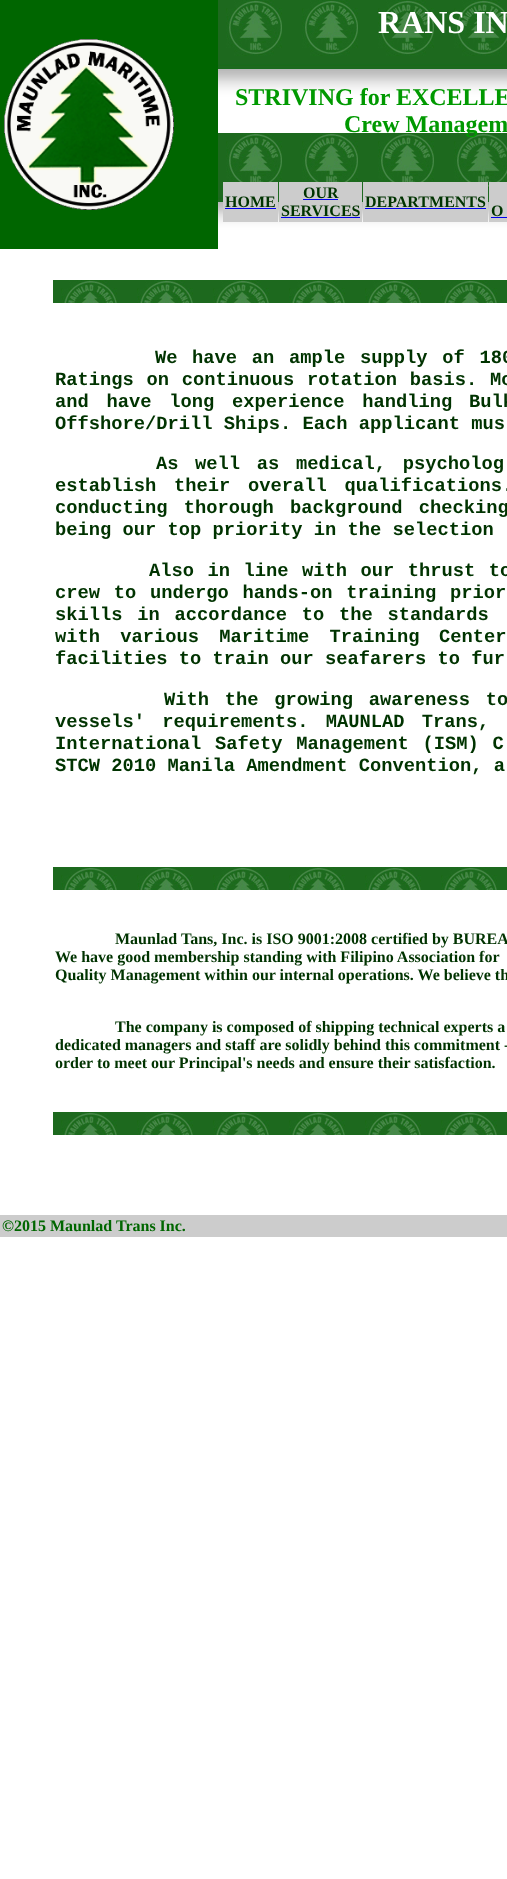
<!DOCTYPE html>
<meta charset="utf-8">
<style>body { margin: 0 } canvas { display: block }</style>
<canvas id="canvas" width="507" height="1879"></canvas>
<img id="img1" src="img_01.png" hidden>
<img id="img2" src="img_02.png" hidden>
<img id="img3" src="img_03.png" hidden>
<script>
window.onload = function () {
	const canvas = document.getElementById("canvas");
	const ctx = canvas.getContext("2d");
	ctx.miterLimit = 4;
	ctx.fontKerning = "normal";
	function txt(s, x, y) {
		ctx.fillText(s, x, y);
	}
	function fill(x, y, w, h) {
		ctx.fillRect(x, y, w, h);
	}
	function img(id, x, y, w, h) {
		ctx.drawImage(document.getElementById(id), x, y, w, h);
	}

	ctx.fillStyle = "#FFFFFF";
	fill(0, 0, 507, 1879);
	ctx.fillStyle = "#006600";
	fill(0, 0, 218, 249);
	img("img1", 4, 39, 170, 171);
	img("img2", 218, 0, 289, 249);
	ctx.fillStyle = "#CCCCCC";
	fill(223, 182, 55, 40);
	ctx.fillStyle = "#0000EE";
	fill(225, 208, 51, 1);
	ctx.fillStyle = "#CCCCCC";
	fill(279, 182, 83, 40);
	ctx.fillStyle = "#0000EE";
	fill(303, 199, 35, 1);
	fill(281, 217, 79, 1);
	ctx.fillStyle = "#CCCCCC";
	fill(363, 182, 125, 40);
	ctx.fillStyle = "#0000EE";
	fill(365, 208, 121, 1);
	ctx.fillStyle = "#CCCCCC";
	fill(489, 182, 18, 40);
	ctx.fillStyle = "#0000EE";
	fill(491, 217, 16, 1);
	img("img3", 53, 280, 454, 23);
	img("img3", 53, 867, 454, 23);
	img("img3", 53, 1112, 454, 23);
	ctx.fillStyle = "#CCCCCC";
	fill(0, 1215, 507, 22);
	ctx.font = "bold 32px Liberation Serif";
	ctx.fillStyle = "#FFFFFF";
	txt("RANS IN", 378, 33);
	ctx.font = "bold 24px Liberation Serif";
	ctx.fillStyle = "#009900";
	txt("STRIVING for EXCELLE", 235, 105);
	txt("Crew Managem", 344, 132);
	ctx.font = "bold 16px Liberation Serif";
	ctx.fillStyle = "#003300";
	txt("HOME", 225, 207);
	txt("OUR", 303, 198);
	txt("SERVICES", 281, 216);
	txt("DEPARTMENTS", 365, 207);
	txt("O", 491, 216);
	ctx.font = "bold 18.75px Liberation Mono";
	txt("We", 155, 363);
	ctx.wordSpacing = "3.5px";
	txt("have an ample supply of 180", 192, 363);
	ctx.wordSpacing = "1.5px";
	txt("Ratings on continuous rotation basis. Mo", 55, 385);
	ctx.wordSpacing = "6.5px";
	txt("and have long experience handling", 55, 407);
	ctx.wordSpacing = "0px";
	txt("Bulk", 469, 407);
	txt("Offshore/Drill Ships. Each applicant mus", 55, 429);
	txt("As", 156, 469);
	ctx.wordSpacing = "5.5px";
	txt("well as medical, psycholog", 195, 469);
	ctx.wordSpacing = "6.5px";
	txt("establish their overall qualifications.", 55, 491);
	ctx.wordSpacing = "5px";
	txt("conducting thorough background checking", 55, 513);
	ctx.wordSpacing = "0px";
	txt("being our top priority in the selection", 55, 535);
	ctx.wordSpacing = "2.25px";
	txt("Also in line with our thrust to", 149, 576);
	ctx.wordSpacing = "2.5px";
	txt("crew to undergo hands-on training prior", 55, 598);
	ctx.wordSpacing = "3.5px";
	txt("skills in accordance to the standards", 55, 620);
	ctx.wordSpacing = "9px";
	txt("with various Maritime Training", 55, 642);
	txt("Center", 439, 642);
	ctx.wordSpacing = "0px";
	txt("facilities to train our seafarers to fur", 55, 664);
	ctx.wordSpacing = "4.5px";
	txt("With the growing awareness to", 164, 705);
	ctx.wordSpacing = "6px";
	txt("vessels' requirements. MAUNLAD Trans,", 55, 727);
	ctx.wordSpacing = "2.5px";
	txt("International Safety Management (ISM) C", 55, 749);
	ctx.wordSpacing = "0px";
	txt("STCW 2010 Manila Amendment Convention, a", 55, 771);
	ctx.font = "bold 16px Liberation Serif";
	txt("Maunlad Tans, Inc. is ISO 9001:2008 certified by BUREA", 115, 944);
	txt("We have good membership standing with Filipino Association for", 55, 962);
	txt("Quality Management within our internal operations. We believe th", 55, 980);
	txt("The company is composed of shipping technical experts a", 115, 1032);
	txt("dedicated managers and staff are solidly behind this commitment -", 55, 1050);
	txt("order to meet our Principal's needs and ensure their satisfaction.", 55, 1068);
	ctx.fillStyle = "#006600";
	txt("©2015 Maunlad Trans Inc.", 2, 1231);
};
</script>
